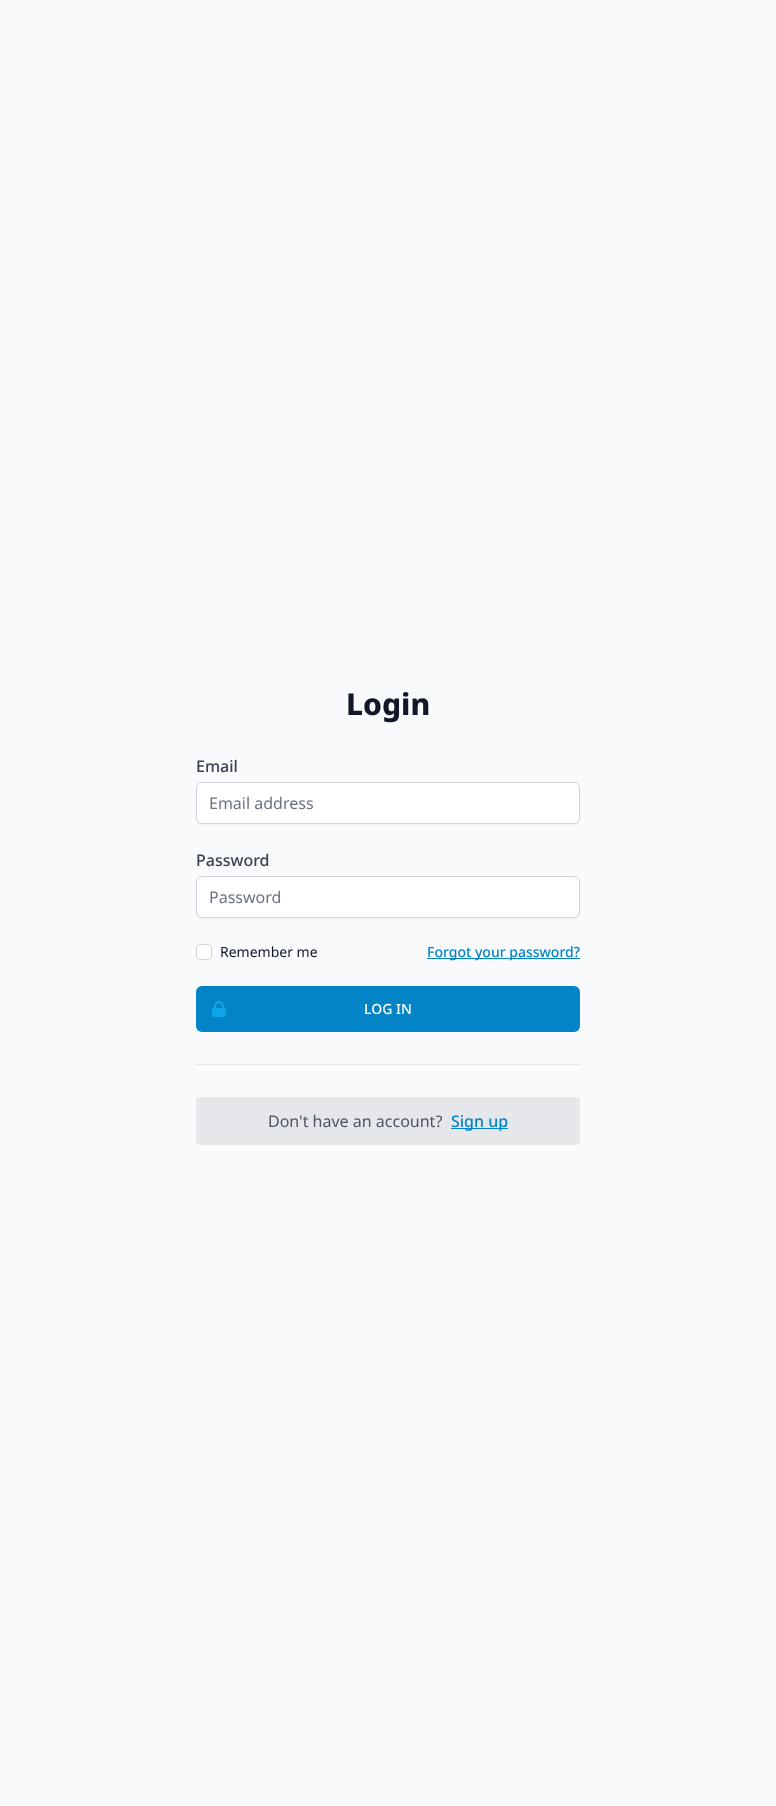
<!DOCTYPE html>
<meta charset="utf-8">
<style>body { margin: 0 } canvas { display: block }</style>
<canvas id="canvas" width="776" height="1806"></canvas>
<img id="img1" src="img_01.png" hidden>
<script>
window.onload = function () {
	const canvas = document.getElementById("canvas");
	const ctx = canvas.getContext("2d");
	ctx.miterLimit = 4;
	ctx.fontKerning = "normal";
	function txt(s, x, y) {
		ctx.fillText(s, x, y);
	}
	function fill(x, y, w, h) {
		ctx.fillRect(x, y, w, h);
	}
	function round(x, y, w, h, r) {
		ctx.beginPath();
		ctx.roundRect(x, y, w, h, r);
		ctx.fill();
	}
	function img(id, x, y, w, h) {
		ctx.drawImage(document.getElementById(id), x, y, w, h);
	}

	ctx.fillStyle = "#F9FAFB";
	fill(0, 0, 776, 1806);
	ctx.fillStyle = "rgba(0, 0, 0, 0.05)";
	ctx.filter = "blur(1px)";
	ctx.beginPath();
	ctx.roundRect(196, 783, 384, 42, 6);
	ctx.fill();
	ctx.filter = "none";
	ctx.fillStyle = "#FFFFFF";
	ctx.beginPath();
	ctx.roundRect(196.5, 782.5, 383, 41, 5.5);
	ctx.fill();
	ctx.strokeStyle = "#D1D5DB";
	ctx.stroke();
	ctx.fillStyle = "rgba(0, 0, 0, 0.05)";
	ctx.filter = "blur(1px)";
	ctx.beginPath();
	ctx.roundRect(196, 877, 384, 42, 6);
	ctx.fill();
	ctx.filter = "none";
	ctx.fillStyle = "#FFFFFF";
	ctx.beginPath();
	ctx.roundRect(196.5, 876.5, 383, 41, 5.5);
	ctx.fill();
	ctx.stroke();
	ctx.beginPath();
	ctx.roundRect(196.5, 944.5, 15, 15, 3.5);
	ctx.fill();
	ctx.stroke();
	ctx.fillStyle = "#0284C7";
	fill(427, 958, 153, 1);
	round(196, 986, 384, 46, 6);
	img("img1", 212, 1001, 14, 16);
	ctx.fillStyle = "#E5E7EB";
	fill(196, 1064, 384, 1);
	round(196, 1097, 384, 48, 4);
	ctx.fillStyle = "#0284C7";
	fill(451, 1128, 57, 1);
	ctx.font = "800 30px Noto Sans";
	ctx.fillStyle = "#111827";
	txt("Login", 346, 715);
	ctx.font = "500 16px Noto Sans";
	ctx.fillStyle = "#374151";
	txt("Email", 196, 772);
	ctx.font = "16px Noto Sans";
	ctx.fillStyle = "#6B7280";
	txt("Email address", 209, 809);
	ctx.font = "500 16px Noto Sans";
	ctx.fillStyle = "#374151";
	txt("Password", 196, 866);
	ctx.font = "16px Noto Sans";
	ctx.fillStyle = "#6B7280";
	txt("Password", 209, 903);
	ctx.font = "14px Noto Sans";
	ctx.fillStyle = "#111827";
	txt("Remember me", 220, 957);
	ctx.font = "500 14px Noto Sans";
	ctx.fillStyle = "#0284C7";
	txt("Forgot your password?", 427, 957);
	ctx.fillStyle = "#FFFFFF";
	txt("LOG IN", 364, 1014);
	ctx.font = "16px Noto Sans";
	ctx.fillStyle = "#4B5563";
	txt("Don't have an account?", 268, 1127);
	ctx.font = "500 16px Noto Sans";
	ctx.fillStyle = "#0284C7";
	txt("Sign up", 451, 1127);
};
</script>
